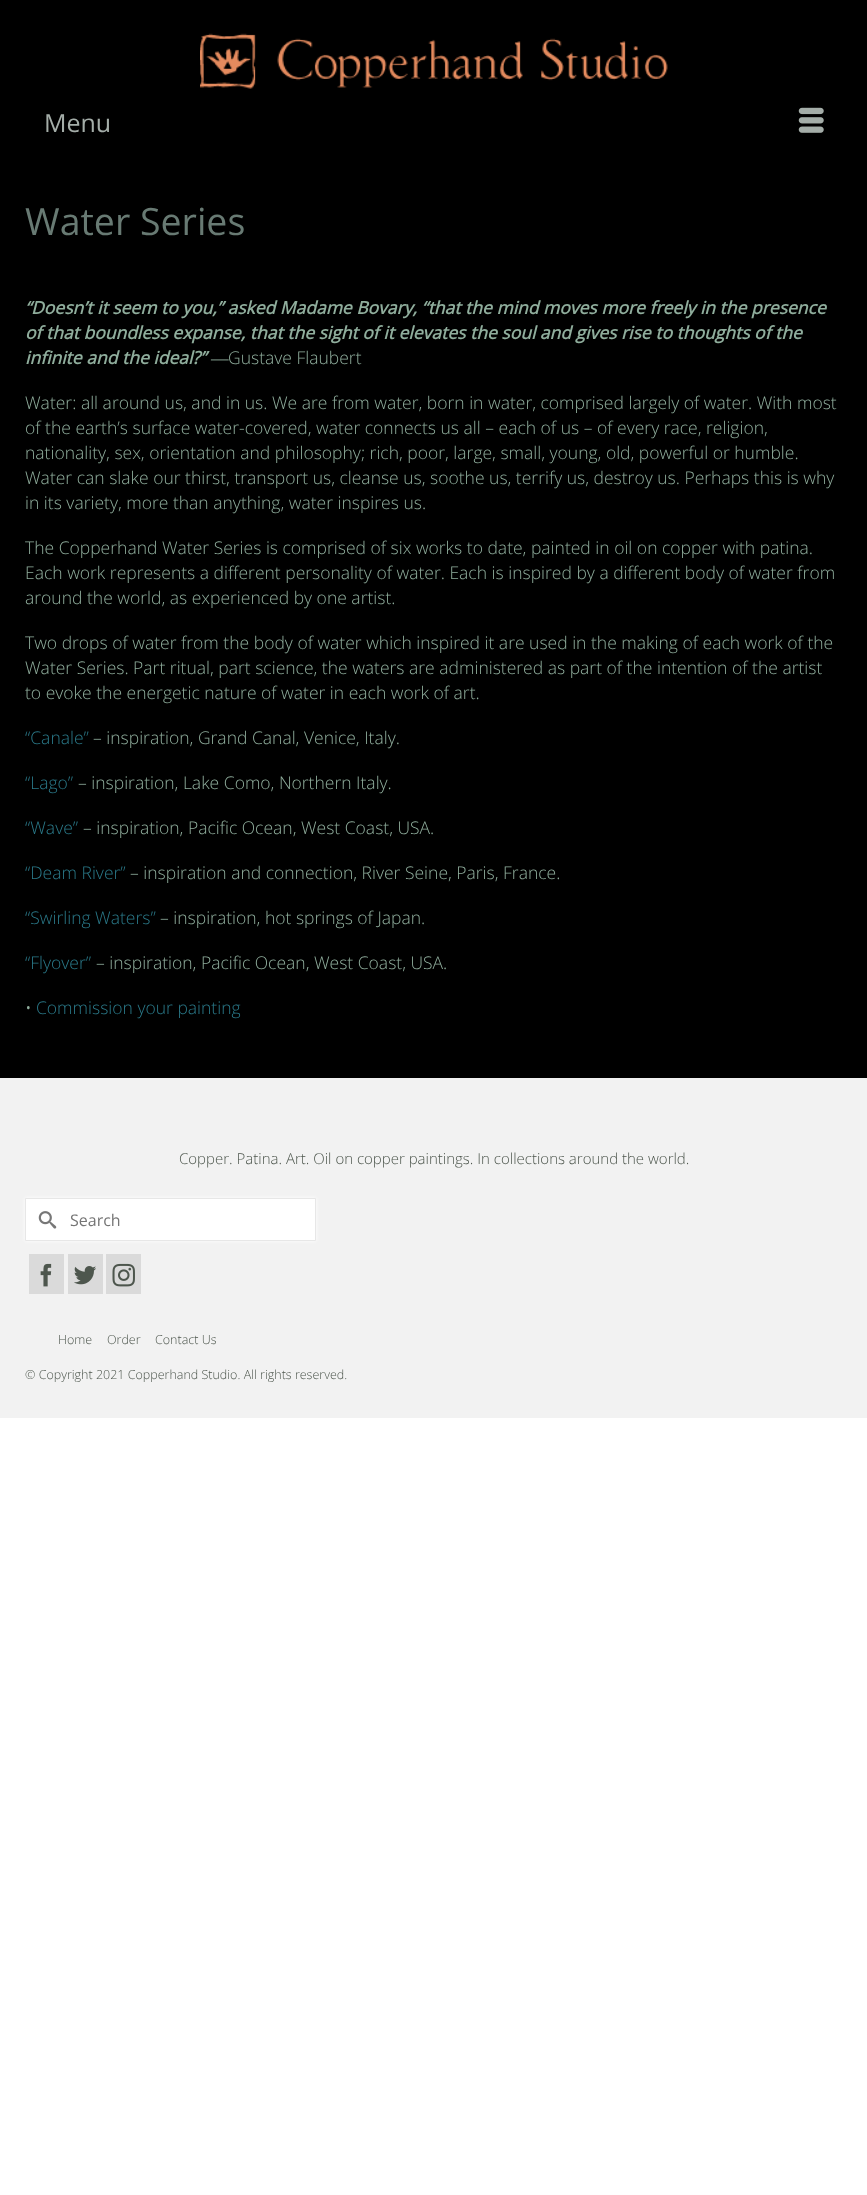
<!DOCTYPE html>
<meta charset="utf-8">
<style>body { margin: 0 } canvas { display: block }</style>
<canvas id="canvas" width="867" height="2195"></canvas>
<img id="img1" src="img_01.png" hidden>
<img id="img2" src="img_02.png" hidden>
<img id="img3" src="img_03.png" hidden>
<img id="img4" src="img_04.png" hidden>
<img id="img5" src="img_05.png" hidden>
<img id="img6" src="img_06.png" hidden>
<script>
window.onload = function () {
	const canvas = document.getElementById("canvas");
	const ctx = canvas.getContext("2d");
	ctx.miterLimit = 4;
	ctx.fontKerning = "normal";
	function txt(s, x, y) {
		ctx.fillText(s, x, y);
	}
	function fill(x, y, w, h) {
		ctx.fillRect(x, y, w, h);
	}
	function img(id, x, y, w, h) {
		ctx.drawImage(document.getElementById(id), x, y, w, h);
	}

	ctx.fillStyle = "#FFFFFF";
	fill(0, 0, 867, 2195);
	ctx.fillStyle = "#000000";
	fill(0, 0, 867, 1078);
	img("img1", 200, 33, 468, 56);
	img("img2", 798, 107, 26, 26);
	ctx.fillStyle = "#F2F2F2";
	fill(0, 1078, 867, 340);
	ctx.fillStyle = "#FFFFFF";
	ctx.filter = "blur(2px)";
	ctx.beginPath();
	ctx.rect(25, 1198, 291, 43);
	ctx.fill();
	ctx.filter = "none";
	ctx.beginPath();
	ctx.rect(25.5, 1198.5, 290, 42);
	ctx.fill();
	ctx.strokeStyle = "#E7E7E7";
	ctx.stroke();
	img("img3", 38, 1211, 19, 18);
	ctx.fillStyle = "#DADADA";
	fill(29, 1254, 35, 40);
	img("img4", 40, 1263, 12, 24);
	fill(68, 1254, 35, 40);
	img("img5", 74, 1266, 22, 19);
	fill(106, 1254, 35, 40);
	img("img6", 112, 1263, 23, 24);
	ctx.font = "25px Open Sans";
	ctx.fillStyle = "#A4ADA8";
	txt("Menu", 44, 132);
	ctx.font = "37.5px Open Sans";
	ctx.fillStyle = "#687A73";
	txt("Water Series", 25, 235);
	ctx.font = "italic bold 17.5px Open Sans";
	ctx.fillStyle = "#8FAD9C";
	txt("“Doesn’t it seem to you,” asked Madame Bovary, “that the mind moves more freely in the presence", 25, 314);
	txt("of that boundless expanse, that the sight of it elevates the soul and gives rise to thoughts of the", 25, 339);
	txt("infinite and the ideal?”", 25, 364);
	ctx.font = "17.5px Liberation Serif";
	txt("―", 211, 364);
	ctx.font = "300 17.5px Open Sans";
	txt("Gustave Flaubert", 228, 364);
	txt("Water: all around us, and in us. We are from water, born in water, comprised largely of water. With most", 25, 409);
	txt("of the earth’s surface water-covered, water connects us all – each of us – of every race, religion,", 25, 434);
	txt("nationality, sex, orientation and philosophy; rich, poor, large, small, young, old, powerful or humble.", 25, 459);
	txt("Water can slake our thirst, transport us, cleanse us, soothe us, terrify us, destroy us. Perhaps this is why", 25, 484);
	txt("in its variety, more than anything, water inspires us.", 25, 509);
	txt("The Copperhand Water Series is comprised of six works to date, painted in oil on copper with patina.", 25, 554);
	txt("Each work represents a different personality of water. Each is inspired by a different body of water from", 25, 579);
	txt("around the world, as experienced by one artist.", 25, 604);
	txt("Two drops of water from the body of water which inspired it are used in the making of each work of the", 25, 649);
	txt("Water Series. Part ritual, part science, the waters are administered as part of the intention of the artist", 25, 674);
	txt("to evoke the energetic nature of water in each work of art.", 25, 699);
	ctx.fillStyle = "#2A7989";
	txt("“Canale”", 25, 744);
	ctx.fillStyle = "#8FAD9C";
	txt("– inspiration, Grand Canal, Venice, Italy.", 93, 744);
	ctx.fillStyle = "#2A7989";
	txt("“Lago”", 25, 789);
	ctx.fillStyle = "#8FAD9C";
	txt("– inspiration, Lake Como, Northern Italy.", 78, 789);
	ctx.fillStyle = "#2A7989";
	txt("“Wave”", 25, 834);
	ctx.fillStyle = "#8FAD9C";
	txt("– inspiration, Pacific Ocean, West Coast, USA.", 83, 834);
	ctx.fillStyle = "#2A7989";
	txt("“Deam River”", 25, 879);
	ctx.fillStyle = "#8FAD9C";
	txt("– inspiration and connection, River Seine, Paris, France.", 130, 879);
	ctx.fillStyle = "#2A7989";
	txt("“Swirling Waters”", 25, 924);
	ctx.fillStyle = "#8FAD9C";
	txt("– inspiration, hot springs of Japan.", 160, 924);
	ctx.fillStyle = "#2A7989";
	txt("“Flyover”", 25, 969);
	ctx.fillStyle = "#8FAD9C";
	txt("– inspiration, Pacific Ocean, West Coast, USA.", 96, 969);
	txt("•", 25, 1014);
	ctx.fillStyle = "#2A7989";
	txt("Commission your painting", 36, 1014);
	ctx.font = "300 15px Open Sans";
	ctx.fillStyle = "#4D564D";
	txt("Copper. Patina. Art. Oil on copper paintings. In collections around the world.", 179, 1164);
	ctx.font = "16px Open Sans";
	ctx.fillStyle = "#757575";
	txt("Search", 70, 1226);
	ctx.font = "300 12.5px Open Sans";
	ctx.fillStyle = "#4D564D";
	txt("Home", 58, 1344);
	txt("Order", 107, 1344);
	txt("Contact Us", 155, 1344);
	txt("© Copyright 2021 Copperhand Studio. All rights reserved.", 25, 1379);
};
</script>
